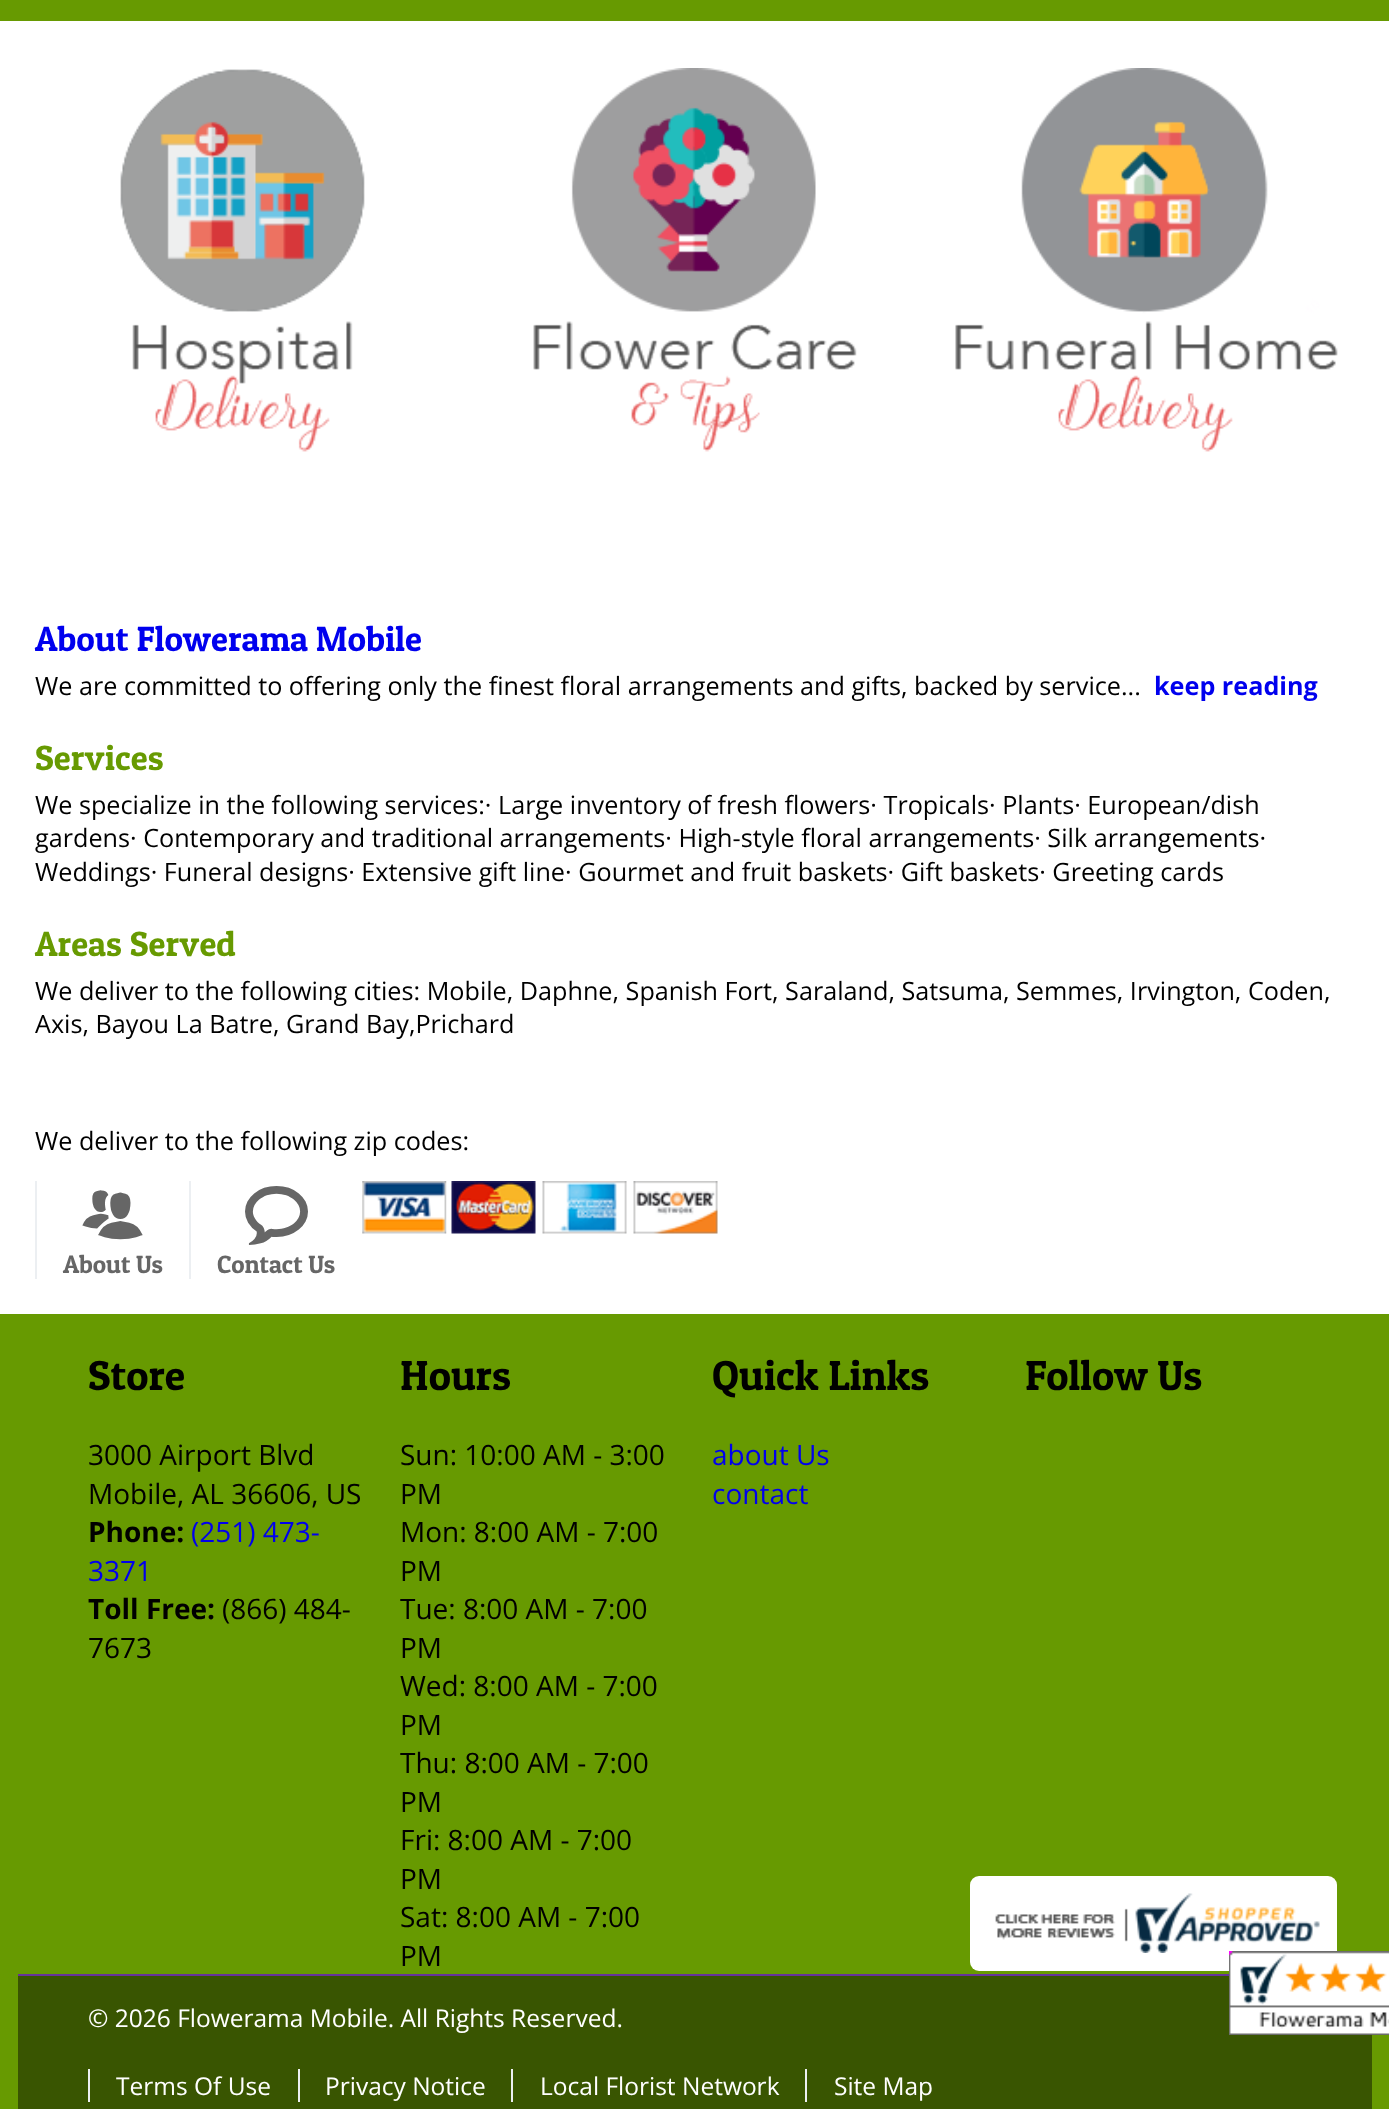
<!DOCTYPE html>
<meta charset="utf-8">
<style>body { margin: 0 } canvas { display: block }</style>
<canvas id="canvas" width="1389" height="2109"></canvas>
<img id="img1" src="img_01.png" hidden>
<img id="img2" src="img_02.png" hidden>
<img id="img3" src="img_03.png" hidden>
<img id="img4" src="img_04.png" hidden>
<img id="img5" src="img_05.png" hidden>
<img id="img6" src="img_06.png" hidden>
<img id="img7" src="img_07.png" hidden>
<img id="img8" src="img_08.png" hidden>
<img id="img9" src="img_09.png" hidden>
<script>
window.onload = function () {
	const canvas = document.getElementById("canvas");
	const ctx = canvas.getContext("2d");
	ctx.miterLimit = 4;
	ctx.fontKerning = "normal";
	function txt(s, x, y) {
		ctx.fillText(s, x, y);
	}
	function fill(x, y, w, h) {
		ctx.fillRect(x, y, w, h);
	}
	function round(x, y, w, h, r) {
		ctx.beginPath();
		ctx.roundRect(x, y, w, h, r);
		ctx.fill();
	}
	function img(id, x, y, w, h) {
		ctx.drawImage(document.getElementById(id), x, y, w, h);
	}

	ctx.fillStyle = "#FFFFFF";
	fill(0, 0, 1389, 2109);
	ctx.fillStyle = "#679A01";
	fill(0, 0, 1389, 21);
	img("img1", 120, 69, 245, 383);
	img("img2", 533, 68, 324, 384);
	img("img3", 955, 68, 383, 384);
	ctx.fillStyle = "#ECEFF2";
	fill(35, 1181, 2, 98);
	fill(189, 1181, 2, 98);
	img("img4", 362, 1181, 85, 53);
	img("img5", 451, 1181, 85, 53);
	img("img6", 542, 1181, 85, 53);
	img("img7", 633, 1181, 85, 53);
	ctx.fillStyle = "#679A01";
	fill(0, 1314, 1389, 795);
	ctx.fillStyle = "#FFFFFF";
	round(970, 1876, 367, 95, 9);
	img("img8", 995, 1893, 325, 60);
	ctx.fillStyle = "#395501";
	fill(18, 1976, 1354, 133);
	img("img9", 1229, 1951, 160, 84);
	ctx.fillStyle = "#66339A";
	fill(18, 1974, 1211, 2);
	ctx.fillStyle = "#ECEFF2";
	fill(88, 2069, 2, 33);
	fill(298, 2069, 2, 33);
	fill(511, 2069, 2, 33);
	fill(805, 2069, 2, 33);
	ctx.font = "35px Patua One";
	ctx.fillStyle = "#0000EE";
	txt("About Flowerama Mobile", 35, 651);
	ctx.font = "25.2px Open Sans";
	ctx.fillStyle = "#000000";
	txt("We are committed to offering only the finest floral arrangements and gifts, backed by service...", 35, 695);
	ctx.font = "bold 25.2px Open Sans";
	ctx.fillStyle = "#0000EE";
	txt("keep reading", 1154, 695);
	ctx.font = "35px Patua One";
	ctx.fillStyle = "#679A01";
	txt("Services", 35, 770);
	ctx.font = "25.2px Open Sans";
	ctx.fillStyle = "#000000";
	txt("We specialize in the following services:· Large inventory of fresh flowers· Tropicals· Plants· European/dish", 35, 814);
	txt("gardens· Contemporary and traditional arrangements· High-style floral arrangements· Silk arrangements·", 35, 847);
	txt("Weddings· Funeral designs· Extensive gift line· Gourmet and fruit baskets· Gift baskets· Greeting cards", 35, 881);
	ctx.font = "35px Patua One";
	ctx.fillStyle = "#679A01";
	txt("Areas Served", 35, 956);
	ctx.font = "25.2px Open Sans";
	ctx.fillStyle = "#000000";
	txt("We deliver to the following cities: Mobile, Daphne, Spanish Fort, Saraland, Satsuma, Semmes, Irvington, Coden,", 35, 1000);
	txt("Axis, Bayou La Batre, Grand Bay,Prichard", 35, 1033);
	txt("We deliver to the following zip codes:", 35, 1150);
	ctx.font = "63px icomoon";
	ctx.fillStyle = "#666666";
	txt(")", 81, 1241);
	ctx.font = "25.2px Patua One";
	txt("About Us", 63, 1273);
	ctx.font = "63px icomoon";
	txt("7", 245, 1241);
	ctx.font = "25.2px Patua One";
	txt("Contact Us", 217, 1273);
	ctx.font = "42px Patua One";
	ctx.fillStyle = "#000000";
	txt("Store", 88, 1390);
	ctx.font = "28px Open Sans";
	txt("3000 Airport Blvd", 88, 1465);
	txt("Mobile, AL 36606, US", 88, 1504);
	ctx.font = "bold 28px Open Sans";
	txt("Phone:", 88, 1542);
	ctx.font = "28px Open Sans";
	ctx.fillStyle = "#0000EE";
	txt("(251) 473-", 191, 1542);
	txt("3371", 88, 1581);
	ctx.font = "bold 28px Open Sans";
	ctx.fillStyle = "#000000";
	txt("Toll Free:", 88, 1619);
	ctx.font = "28px Open Sans";
	txt("(866) 484-", 222, 1619);
	txt("7673", 88, 1658);
	ctx.font = "42px Patua One";
	txt("Hours", 400, 1390);
	ctx.font = "28px Open Sans";
	txt("Sun: 10:00 AM - 3:00", 400, 1465);
	txt("PM", 400, 1504);
	txt("Mon: 8:00 AM - 7:00", 400, 1542);
	txt("PM", 400, 1581);
	txt("Tue: 8:00 AM - 7:00", 400, 1619);
	txt("PM", 400, 1658);
	txt("Wed: 8:00 AM - 7:00", 400, 1696);
	txt("PM", 400, 1735);
	txt("Thu: 8:00 AM - 7:00", 400, 1773);
	txt("PM", 400, 1812);
	txt("Fri: 8:00 AM - 7:00", 400, 1850);
	txt("PM", 400, 1889);
	txt("Sat: 8:00 AM - 7:00", 400, 1927);
	txt("PM", 400, 1966);
	ctx.font = "42px Patua One";
	txt("Quick Links", 712, 1390);
	ctx.font = "28px Open Sans";
	ctx.fillStyle = "#0000EE";
	txt("about Us", 712, 1465);
	txt("contact", 712, 1504);
	ctx.font = "42px Patua One";
	ctx.fillStyle = "#000000";
	txt("Follow Us", 1025, 1390);
	ctx.font = "24.5px Open Sans";
	ctx.fillStyle = "#FFFFFF";
	txt("© 2026 Flowerama Mobile. All Rights Reserved.", 88, 2027);
	txt("Terms Of Use", 116, 2095);
	txt("Privacy Notice", 325, 2095);
	txt("Local Florist Network", 540, 2095);
	txt("Site Map", 834, 2095);
};
</script>
